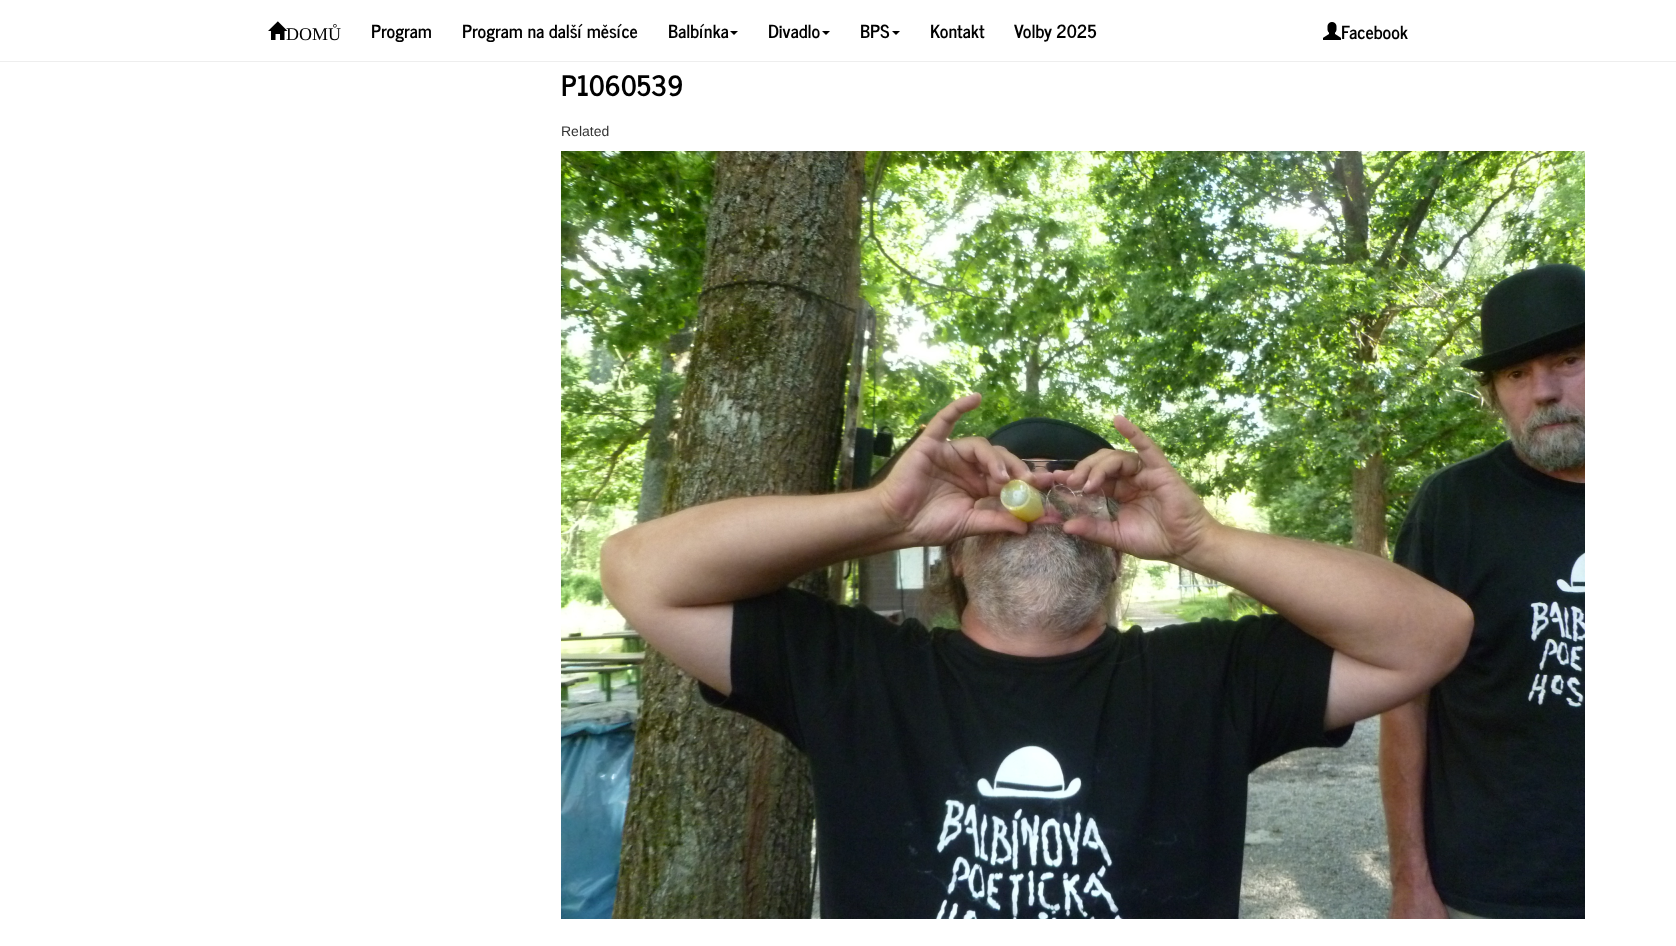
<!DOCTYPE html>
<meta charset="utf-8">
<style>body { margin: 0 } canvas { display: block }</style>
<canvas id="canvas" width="1676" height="946"></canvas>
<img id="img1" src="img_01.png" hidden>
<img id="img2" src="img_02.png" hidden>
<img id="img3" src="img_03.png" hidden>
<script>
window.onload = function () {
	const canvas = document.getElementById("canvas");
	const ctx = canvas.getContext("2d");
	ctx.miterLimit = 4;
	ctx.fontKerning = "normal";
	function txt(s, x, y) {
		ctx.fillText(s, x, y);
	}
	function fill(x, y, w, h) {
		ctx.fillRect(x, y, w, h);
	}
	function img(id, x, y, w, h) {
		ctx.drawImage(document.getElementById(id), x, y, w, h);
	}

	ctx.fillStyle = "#FFFFFF";
	fill(0, 0, 1676, 946);
	ctx.fillStyle = "#EEEEEE";
	fill(0, 61, 1676, 1);
	img("img1", 268, 21, 20, 19);
	ctx.fillStyle = "#000000";
	ctx.beginPath();
	ctx.moveTo(730, 31);
	ctx.lineTo(738, 31);
	ctx.lineTo(734, 35);
	ctx.closePath();
	ctx.fill();
	ctx.beginPath();
	ctx.moveTo(822, 31);
	ctx.lineTo(830, 31);
	ctx.lineTo(826, 35);
	ctx.closePath();
	ctx.fill();
	ctx.beginPath();
	ctx.moveTo(892, 31);
	ctx.lineTo(900, 31);
	ctx.lineTo(896, 35);
	ctx.closePath();
	ctx.fill();
	img("img2", 1323, 22, 18, 18);
	img("img3", 561, 151, 1024, 768);
	ctx.font = "18px Liberation Serif";
	txt("DOMŮ", 286, 40);
	ctx.font = "bold 18px News Cycle";
	txt("Program", 371, 38);
	txt("Program na další měsíce", 462, 38);
	txt("Balbínka", 668, 38);
	txt("Divadlo", 768, 38);
	txt("BPS", 860, 38);
	txt("Kontakt", 930, 38);
	txt("Volby 2025", 1014, 38);
	txt("Facebook", 1341, 39);
	ctx.font = "bold 28px News Cycle";
	txt("P1060539", 561, 96);
	ctx.font = "14px Liberation Sans";
	ctx.fillStyle = "#333333";
	txt("Related", 561, 136);
};
</script>
